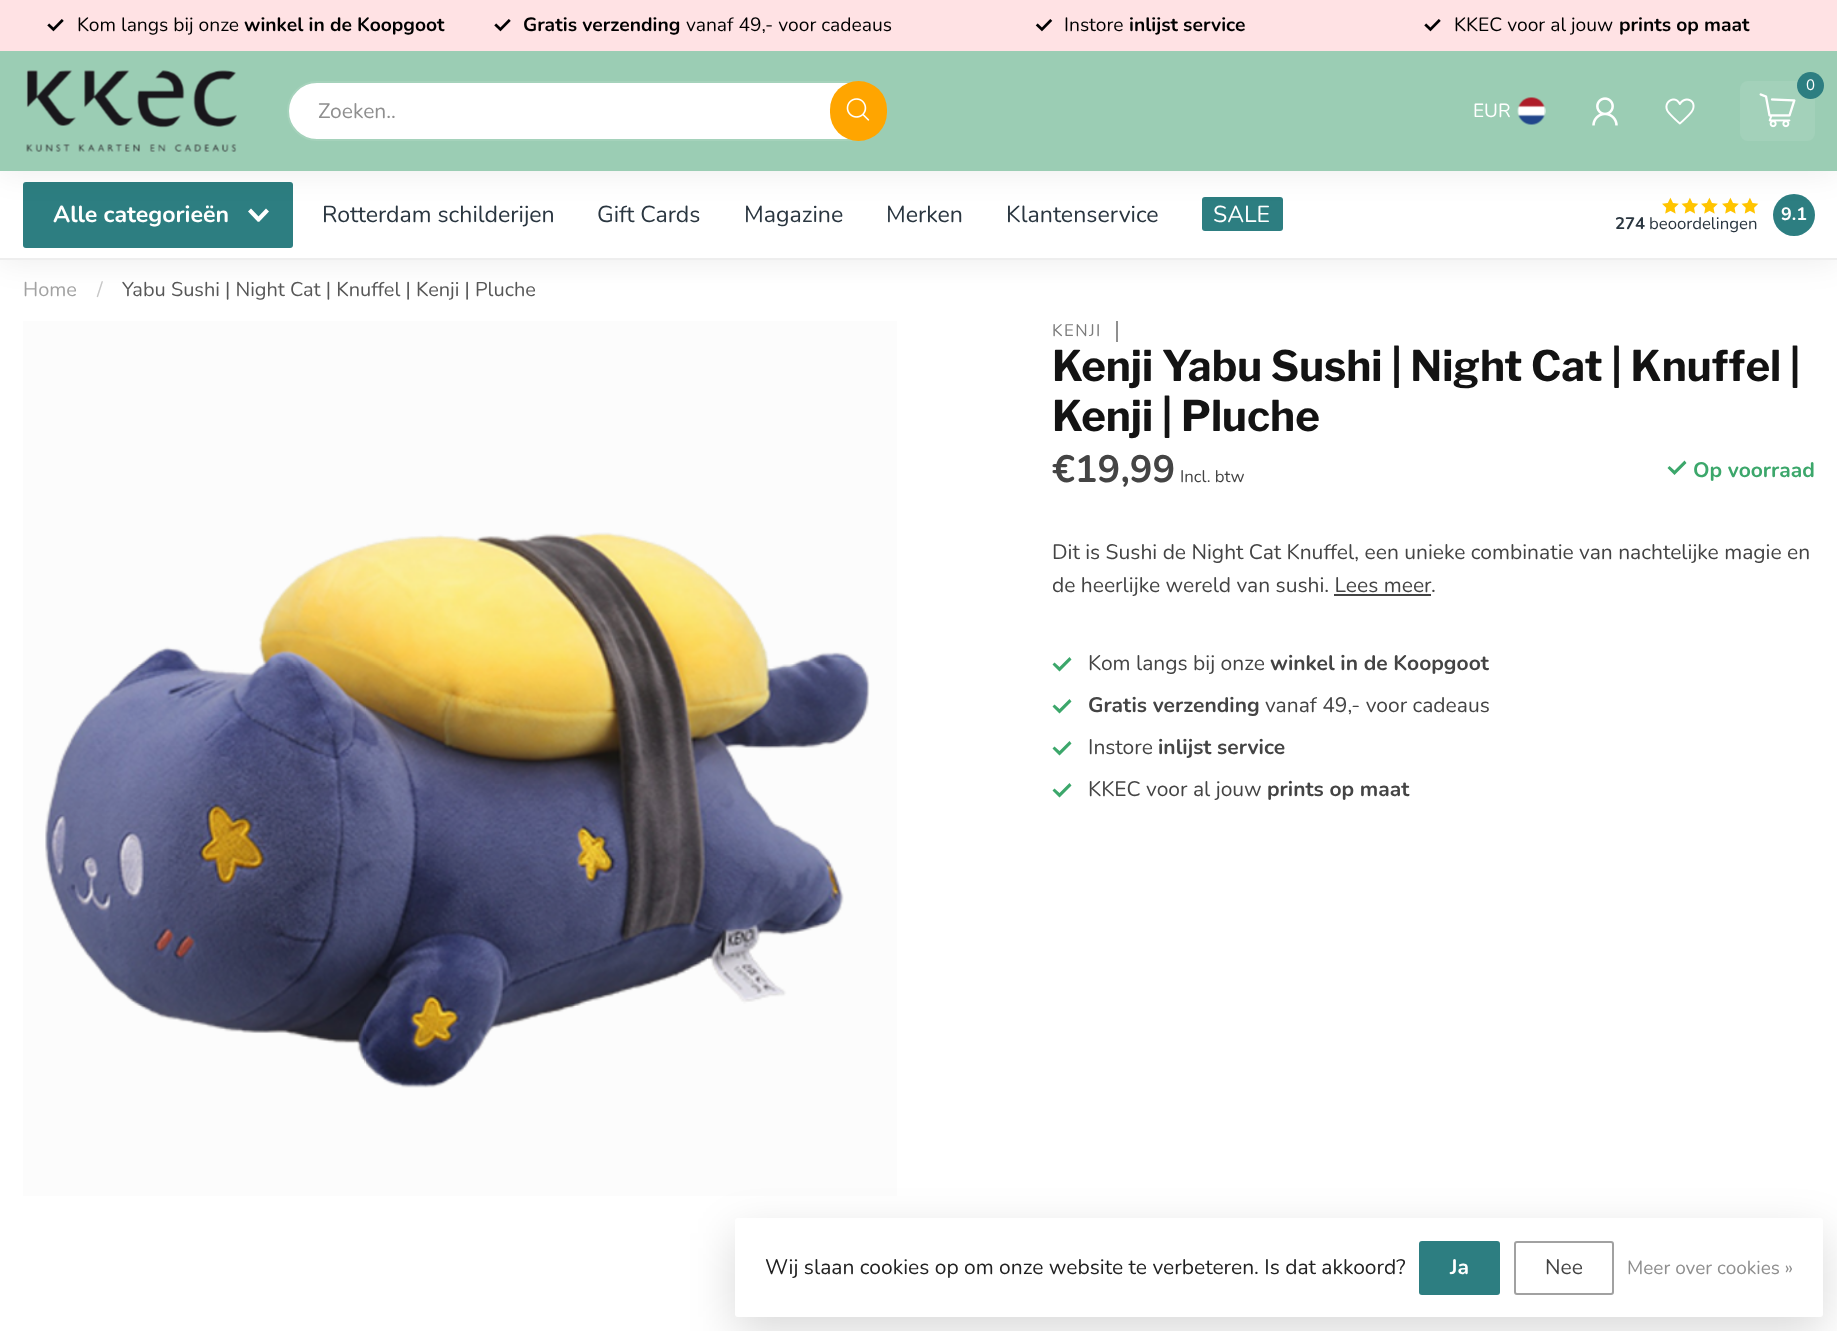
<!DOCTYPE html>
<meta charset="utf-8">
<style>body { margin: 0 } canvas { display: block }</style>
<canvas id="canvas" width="1837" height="1331"></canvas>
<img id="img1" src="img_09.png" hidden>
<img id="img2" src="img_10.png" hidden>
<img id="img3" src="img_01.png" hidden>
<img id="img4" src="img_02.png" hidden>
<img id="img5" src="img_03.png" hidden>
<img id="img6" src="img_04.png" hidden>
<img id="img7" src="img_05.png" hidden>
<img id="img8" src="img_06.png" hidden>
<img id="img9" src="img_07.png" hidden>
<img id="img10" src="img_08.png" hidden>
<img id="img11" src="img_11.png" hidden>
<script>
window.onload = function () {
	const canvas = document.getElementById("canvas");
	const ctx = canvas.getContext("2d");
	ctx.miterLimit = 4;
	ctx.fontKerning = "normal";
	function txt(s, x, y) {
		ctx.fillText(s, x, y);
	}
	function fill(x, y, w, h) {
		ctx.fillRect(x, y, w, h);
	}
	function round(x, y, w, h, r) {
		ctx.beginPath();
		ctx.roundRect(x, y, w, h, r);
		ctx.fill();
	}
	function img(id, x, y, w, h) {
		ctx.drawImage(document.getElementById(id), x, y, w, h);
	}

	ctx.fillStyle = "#FFFFFF";
	fill(0, 0, 1837, 1331);
	ctx.fillStyle = "#FCFCFC";
	fill(23, 321, 874, 875);
	ctx.fillStyle = "rgba(0, 0, 0, 0.08)";
	ctx.filter = "blur(16.5px)";
	ctx.beginPath();
	ctx.rect(0, 171, 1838, 89);
	ctx.fill();
	ctx.filter = "none";
	ctx.fillStyle = "#FFFFFF";
	fill(0, 171, 1837, 87);
	ctx.fillStyle = "#2D7E81";
	round(23, 182, 270, 66, 3);
	ctx.fillStyle = "#FFFFFF";
	ctx.beginPath();
	ctx.moveTo(251, 208.5);
	ctx.lineTo(261, 219);
	ctx.lineTo(258, 222);
	ctx.lineTo(248, 211.5);
	ctx.closePath();
	ctx.fill();
	ctx.beginPath();
	ctx.moveTo(256, 219);
	ctx.lineTo(266, 208.5);
	ctx.lineTo(269, 211.5);
	ctx.lineTo(259, 222);
	ctx.closePath();
	ctx.fill();
	ctx.fillStyle = "#2D7E81";
	round(1202, 197, 81, 34, 3);
	ctx.beginPath();
	ctx.arc(1794, 215, 21, 0, Math.PI * 2);
	ctx.fill();
	img("img1", 1662, 197, 17, 17);
	img("img2", 1681, 197, 18, 17);
	img("img1", 1701, 197, 17, 17);
	img("img1", 1722, 197, 17, 17);
	img("img2", 1741, 197, 18, 17);
	ctx.fillStyle = "rgba(0, 0, 0, 0.08)";
	ctx.filter = "blur(16.5px)";
	ctx.beginPath();
	ctx.rect(0, 0, 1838, 171);
	ctx.fill();
	ctx.filter = "none";
	ctx.fillStyle = "#9BCDB4";
	fill(0, 51, 1837, 120);
	ctx.fillStyle = "#FFE2E4";
	fill(0, 0, 1837, 51);
	img("img3", 47, 19, 17, 13);
	img("img3", 494, 19, 17, 13);
	img("img4", 1035, 19, 18, 13);
	img("img3", 1424, 19, 17, 13);
	img("img5", 26, 70, 211, 82);
	ctx.fillStyle = "#FFFFFF";
	ctx.beginPath();
	ctx.roundRect(288, 82, 598, 58, 29);
	ctx.fill();
	ctx.strokeStyle = "#A5D2BB";
	ctx.lineWidth = 2;
	ctx.stroke();
	ctx.fillStyle = "#FFA500";
	round(830, 81, 57, 60, 28.5);
	img("img6", 846, 98, 24, 23);
	ctx.fillStyle = "#A3D1BA";
	round(1740, 81, 75, 60, 8);
	ctx.fillStyle = "#2D7E81";
	ctx.beginPath();
	ctx.arc(1810.5, 85.5, 13.5, 0, Math.PI * 2);
	ctx.fill();
	img("img7", 1759, 93, 37, 35);
	img("img8", 1517, 97, 29, 28);
	img("img9", 1592, 97, 26, 29);
	img("img10", 1665, 98, 30, 27);
	ctx.fillStyle = "#EEEEEE";
	fill(0, 258, 1837, 2);
	img("img11", 45, 532, 825, 556);
	ctx.fillStyle = "#8F8F8F";
	fill(1116, 321, 2, 21);
	ctx.fillStyle = "#3CA76B";
	ctx.beginPath();
	ctx.moveTo(1674.5, 475);
	ctx.lineTo(1667.5, 468);
	ctx.lineTo(1669.5, 466);
	ctx.lineTo(1674.5, 470.5);
	ctx.lineTo(1684.5, 460.5);
	ctx.lineTo(1686.5, 463);
	ctx.closePath();
	ctx.fill();
	ctx.fillStyle = "#444444";
	fill(1334, 594, 97, 2);
	ctx.fillStyle = "#3CA76B";
	ctx.beginPath();
	ctx.moveTo(1059.5, 671.5);
	ctx.lineTo(1052.5, 664.5);
	ctx.lineTo(1054.5, 662.5);
	ctx.lineTo(1059.5, 667);
	ctx.lineTo(1069.5, 657);
	ctx.lineTo(1071.5, 659.5);
	ctx.closePath();
	ctx.fill();
	ctx.beginPath();
	ctx.moveTo(1059.5, 713.5);
	ctx.lineTo(1052.5, 706.5);
	ctx.lineTo(1054.5, 704.5);
	ctx.lineTo(1059.5, 709);
	ctx.lineTo(1069.5, 699);
	ctx.lineTo(1071.5, 701.5);
	ctx.closePath();
	ctx.fill();
	ctx.beginPath();
	ctx.moveTo(1059.5, 755.5);
	ctx.lineTo(1052.5, 748.5);
	ctx.lineTo(1054.5, 746.5);
	ctx.lineTo(1059.5, 751);
	ctx.lineTo(1069.5, 741);
	ctx.lineTo(1071.5, 743.5);
	ctx.closePath();
	ctx.fill();
	ctx.beginPath();
	ctx.moveTo(1059.5, 797.5);
	ctx.lineTo(1052.5, 790.5);
	ctx.lineTo(1054.5, 788.5);
	ctx.lineTo(1059.5, 793);
	ctx.lineTo(1069.5, 783);
	ctx.lineTo(1071.5, 785.5);
	ctx.closePath();
	ctx.fill();
	ctx.fillStyle = "rgba(0, 0, 0, 0.15)";
	ctx.filter = "blur(22.5px)";
	ctx.beginPath();
	ctx.roundRect(735, 1233, 1088, 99, 3);
	ctx.fill();
	ctx.filter = "none";
	ctx.fillStyle = "#FFFFFF";
	round(735, 1218, 1088, 99, 3);
	ctx.fillStyle = "#2D7E81";
	round(1419, 1241, 81, 54, 3);
	ctx.beginPath();
	ctx.roundRect(1515, 1242, 98, 52, 2);
	ctx.strokeStyle = "#A1A1A1";
	ctx.stroke();
	ctx.font = "19.25px Nunito";
	ctx.fillStyle = "#000000";
	txt("Kom langs bij onze", 77, 31);
	ctx.font = "bold 19.25px Nunito";
	txt("winkel in de Koopgoot", 244, 31);
	txt("Gratis verzending", 523, 31);
	ctx.font = "19.25px Nunito";
	txt("vanaf 49,- voor cadeaus", 686, 31);
	txt("Instore", 1064, 31);
	ctx.font = "bold 19.25px Nunito";
	txt("inlijst service", 1129, 31);
	ctx.font = "19.25px Nunito";
	txt("KKEC voor al jouw", 1454, 31);
	ctx.font = "bold 19.25px Nunito";
	txt("prints op maat", 1619, 31);
	ctx.font = "21px Nunito";
	ctx.fillStyle = "#8F8F8F";
	txt("Zoeken..", 318, 118);
	ctx.font = "15px Nunito";
	ctx.fillStyle = "#FFFFFF";
	txt("0", 1806, 90);
	ctx.font = "19px Nunito";
	txt("EUR", 1473, 117);
	ctx.font = "bold 23.1px Nunito";
	txt("Alle categorieën", 53, 222);
	ctx.font = "23.1px Nunito";
	ctx.fillStyle = "#2A3640";
	txt("Rotterdam schilderijen", 322, 222);
	txt("Gift Cards", 597, 222);
	txt("Magazine", 744, 222);
	txt("Merken", 886, 222);
	txt("Klantenservice", 1006, 222);
	ctx.fillStyle = "#FFFFFF";
	txt("SALE", 1213, 222);
	ctx.font = "bold 18px Nunito";
	txt("9.1", 1781, 220);
	ctx.font = "bold 16.75px Nunito";
	ctx.fillStyle = "#2A3640";
	txt("274", 1615, 229);
	ctx.font = "16.75px Nunito";
	txt("beoordelingen", 1649, 229);
	ctx.font = "19.95px Nunito";
	ctx.fillStyle = "#A2A2A2";
	txt("Home", 23, 296);
	ctx.fillStyle = "#C7C7C7";
	txt("/", 97, 296);
	ctx.fillStyle = "#575757";
	txt("Yabu Sushi | Night Cat | Knuffel | Kenji | Pluche", 122, 296);
	ctx.letterSpacing = "1.5px";
	ctx.font = "16.75px Nunito";
	ctx.fillStyle = "#7C7C7C";
	txt("KENJI", 1052, 336);
	ctx.letterSpacing = "0px";
	ctx.font = "bold 42px Libre Franklin";
	ctx.fillStyle = "#131313";
	txt("Kenji Yabu Sushi | Night Cat | Knuffel |", 1052, 381);
	txt("Kenji | Pluche", 1052, 431);
	ctx.font = "bold 38px Nunito";
	ctx.fillStyle = "#444444";
	txt("€19,99", 1052, 482);
	ctx.font = "16.75px Nunito";
	txt("Incl. btw", 1180, 482);
	ctx.font = "bold 21px Nunito";
	ctx.fillStyle = "#3CA76B";
	txt("Op voorraad", 1693, 477);
	ctx.font = "21px Nunito";
	ctx.fillStyle = "#444444";
	txt("Dit is Sushi de Night Cat Knuffel, een unieke combinatie van nachtelijke magie en", 1052, 559);
	txt("de heerlijke wereld van sushi. Lees meer", 1052, 592);
	txt(".", 1431, 592);
	txt("Kom langs bij onze", 1088, 670);
	ctx.font = "bold 21px Nunito";
	txt("winkel in de Koopgoot", 1270, 670);
	txt("Gratis verzending", 1088, 712);
	ctx.font = "21px Nunito";
	txt("vanaf 49,- voor cadeaus", 1265, 712);
	txt("Instore", 1088, 754);
	ctx.font = "bold 21px Nunito";
	txt("inlijst service", 1158, 754);
	ctx.font = "21px Nunito";
	txt("KKEC voor al jouw", 1088, 796);
	ctx.font = "bold 21px Nunito";
	txt("prints op maat", 1267, 796);
	ctx.font = "21px Nunito";
	ctx.fillStyle = "#222222";
	txt("Wij slaan cookies op om onze website te verbeteren. Is dat akkoord?", 765, 1274);
	ctx.font = "bold 21px Nunito";
	ctx.fillStyle = "#FFFFFF";
	txt("Ja", 1450, 1274);
	ctx.font = "21px Nunito";
	ctx.fillStyle = "#444444";
	txt("Nee", 1545, 1274);
	ctx.font = "19px Nunito";
	ctx.fillStyle = "#8F8F8F";
	txt("Meer over cookies »", 1627, 1274);
};
</script>
